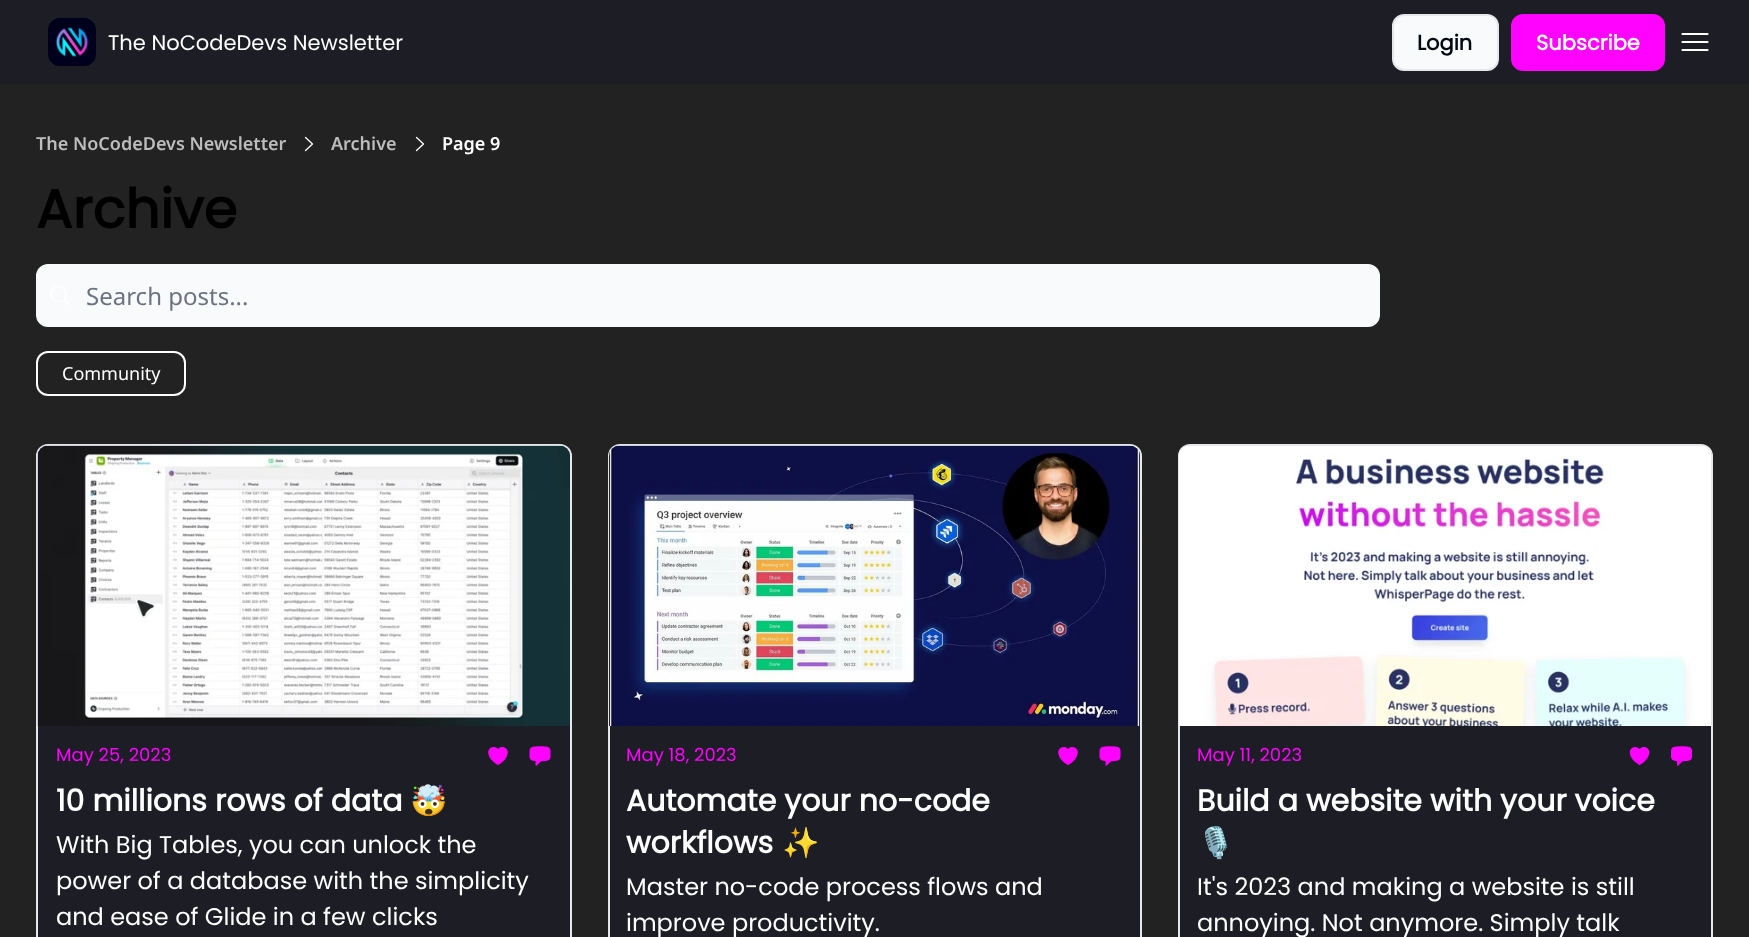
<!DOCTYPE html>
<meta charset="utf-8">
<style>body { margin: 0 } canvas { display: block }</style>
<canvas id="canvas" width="1749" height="937"></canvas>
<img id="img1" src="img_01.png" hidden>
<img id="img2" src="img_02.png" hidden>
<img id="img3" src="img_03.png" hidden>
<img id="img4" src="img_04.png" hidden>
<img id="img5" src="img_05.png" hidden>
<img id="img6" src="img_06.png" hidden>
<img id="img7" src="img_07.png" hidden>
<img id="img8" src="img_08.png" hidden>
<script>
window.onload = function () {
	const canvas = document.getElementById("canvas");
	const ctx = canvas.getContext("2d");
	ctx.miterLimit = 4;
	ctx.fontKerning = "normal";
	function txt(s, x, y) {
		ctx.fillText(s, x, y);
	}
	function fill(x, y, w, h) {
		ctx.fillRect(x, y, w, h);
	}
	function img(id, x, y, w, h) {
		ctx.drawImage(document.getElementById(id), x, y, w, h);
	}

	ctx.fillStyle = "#1D1D26";
	fill(0, 0, 1749, 937);
	img("img1", 48, 18, 48, 48);
	ctx.fillStyle = "#F9FAFB";
	ctx.beginPath();
	ctx.roundRect(1393, 15, 105, 55, 11);
	ctx.fill();
	ctx.strokeStyle = "#E5E7EB";
	ctx.lineWidth = 2;
	ctx.stroke();
	ctx.fillStyle = "#FF03FF";
	ctx.beginPath();
	ctx.roundRect(1512, 15, 152, 55, 11);
	ctx.fill();
	ctx.strokeStyle = "#FF03FF";
	ctx.stroke();
	ctx.beginPath();
	ctx.moveTo(1682.5, 34);
	ctx.lineTo(1707.5, 34);
	ctx.moveTo(1682.5, 42);
	ctx.lineTo(1707.5, 42);
	ctx.moveTo(1682.5, 50);
	ctx.lineTo(1707.5, 50);
	ctx.strokeStyle = "#FFFFFF";
	ctx.lineWidth = 2.2;
	ctx.lineCap = "round";
	ctx.lineJoin = "round";
	ctx.stroke();
	ctx.fillStyle = "#222222";
	fill(0, 84, 1749, 853);
	ctx.beginPath();
	ctx.moveTo(305.5, 137.5);
	ctx.lineTo(312.5, 144);
	ctx.lineTo(305.5, 150.5);
	ctx.lineWidth = 1.3;
	ctx.stroke();
	ctx.beginPath();
	ctx.moveTo(416.5, 137.5);
	ctx.lineTo(423.5, 144);
	ctx.lineTo(416.5, 150.5);
	ctx.stroke();
	ctx.fillStyle = "#F9FAFB";
	ctx.beginPath();
	ctx.roundRect(37, 265, 1342, 61, 11);
	ctx.fill();
	ctx.strokeStyle = "#F9FAFB";
	ctx.lineWidth = 2;
	ctx.lineJoin = "miter";
	ctx.stroke();
	ctx.beginPath();
	ctx.moveTo(69, 304.5);
	ctx.lineTo(64, 299.5);
	ctx.moveTo(64, 299.5);
	ctx.bezierCurveTo(71, 292.5, 60, 281.5, 53, 288.5);
	ctx.bezierCurveTo(46, 295.5, 57, 306.5, 64, 299.5);
	ctx.closePath();
	ctx.strokeStyle = "#FFFFFF";
	ctx.lineWidth = 1.5;
	ctx.lineJoin = "round";
	ctx.stroke();
	ctx.beginPath();
	ctx.roundRect(37, 352, 148, 43, 11);
	ctx.lineWidth = 2;
	ctx.lineJoin = "miter";
	ctx.stroke();
	ctx.fillStyle = "#1D1D26";
	ctx.beginPath();
	ctx.roundRect(37, 445, 534, 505, 11);
	ctx.fill();
	ctx.strokeStyle = "#E5E7EB";
	ctx.stroke();
	img("img2", 37, 445, 533, 281);
	img("img3", 488, 747, 20, 18);
	img("img4", 529, 746, 22, 20);
	ctx.beginPath();
	ctx.roundRect(609, 445, 532, 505, 11);
	ctx.fill();
	ctx.stroke();
	img("img5", 609, 445, 531, 281);
	img("img3", 1058, 747, 20, 18);
	img("img4", 1099, 746, 22, 20);
	ctx.beginPath();
	ctx.roundRect(1179, 445, 533, 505, 11);
	ctx.fill();
	ctx.stroke();
	img("img6", 1179, 446, 532, 280);
	img("img7", 1629, 747, 21, 18);
	img("img8", 1671, 746, 21, 20);
	ctx.font = "21px Poppins";
	ctx.fillStyle = "#FFFFFF";
	txt("The NoCodeDevs Newsletter", 108, 50);
	ctx.font = "bold 21px Poppins";
	ctx.fillStyle = "#030712";
	txt("Login", 1417, 50);
	ctx.fillStyle = "#FFFFFF";
	txt("Subscribe", 1536, 50);
	ctx.font = "600 18px Noto Sans";
	ctx.fillStyle = "#BDBDBD";
	txt("The NoCodeDevs Newsletter", 36, 150);
	txt("Archive", 331, 150);
	ctx.fillStyle = "#FFFFFF";
	txt("Page 9", 442, 150);
	ctx.font = "bold 54px Poppins";
	ctx.fillStyle = "#000000";
	txt("Archive", 36, 228);
	ctx.font = "24px Noto Sans";
	ctx.fillStyle = "#6B7280";
	txt("Search posts...", 86, 305);
	ctx.font = "18px Noto Sans";
	ctx.fillStyle = "#FFFFFF";
	txt("Community", 62, 380);
	ctx.font = "18px Poppins";
	ctx.fillStyle = "#FF03FF";
	txt("May 25, 2023", 56, 761);
	ctx.font = "bold 30px Poppins";
	ctx.fillStyle = "#FFFFFF";
	txt("10 millions rows of data", 56, 811);
	ctx.font = "30px Noto Color Emoji";
	txt("🤯", 410, 811);
	ctx.font = "24px Poppins";
	txt("With Big Tables, you can unlock the", 56, 853);
	txt("power of a database with the simplicity", 56, 889);
	txt("and ease of Glide in a few clicks", 56, 925);
	ctx.font = "18px Poppins";
	ctx.fillStyle = "#FF03FF";
	txt("May 18, 2023", 626, 761);
	ctx.font = "bold 30px Poppins";
	ctx.fillStyle = "#FFFFFF";
	txt("Automate your no-code", 626, 811);
	txt("workflows", 626, 853);
	ctx.font = "30px Noto Color Emoji";
	txt("✨", 782, 853);
	ctx.font = "24px Poppins";
	txt("Master no-code process flows and", 626, 895);
	txt("improve productivity.", 626, 931);
	ctx.font = "18px Poppins";
	ctx.fillStyle = "#FF03FF";
	txt("May 11, 2023", 1197, 761);
	ctx.font = "bold 30px Poppins";
	ctx.fillStyle = "#FFFFFF";
	txt("Build a website with your voice", 1197, 811);
	ctx.font = "30px Noto Color Emoji";
	txt("🎙️", 1197, 853);
	ctx.font = "24px Poppins";
	txt("It's 2023 and making a website is still", 1197, 895);
	txt("annoying. Not anymore. Simply talk", 1197, 931);
};
</script>
